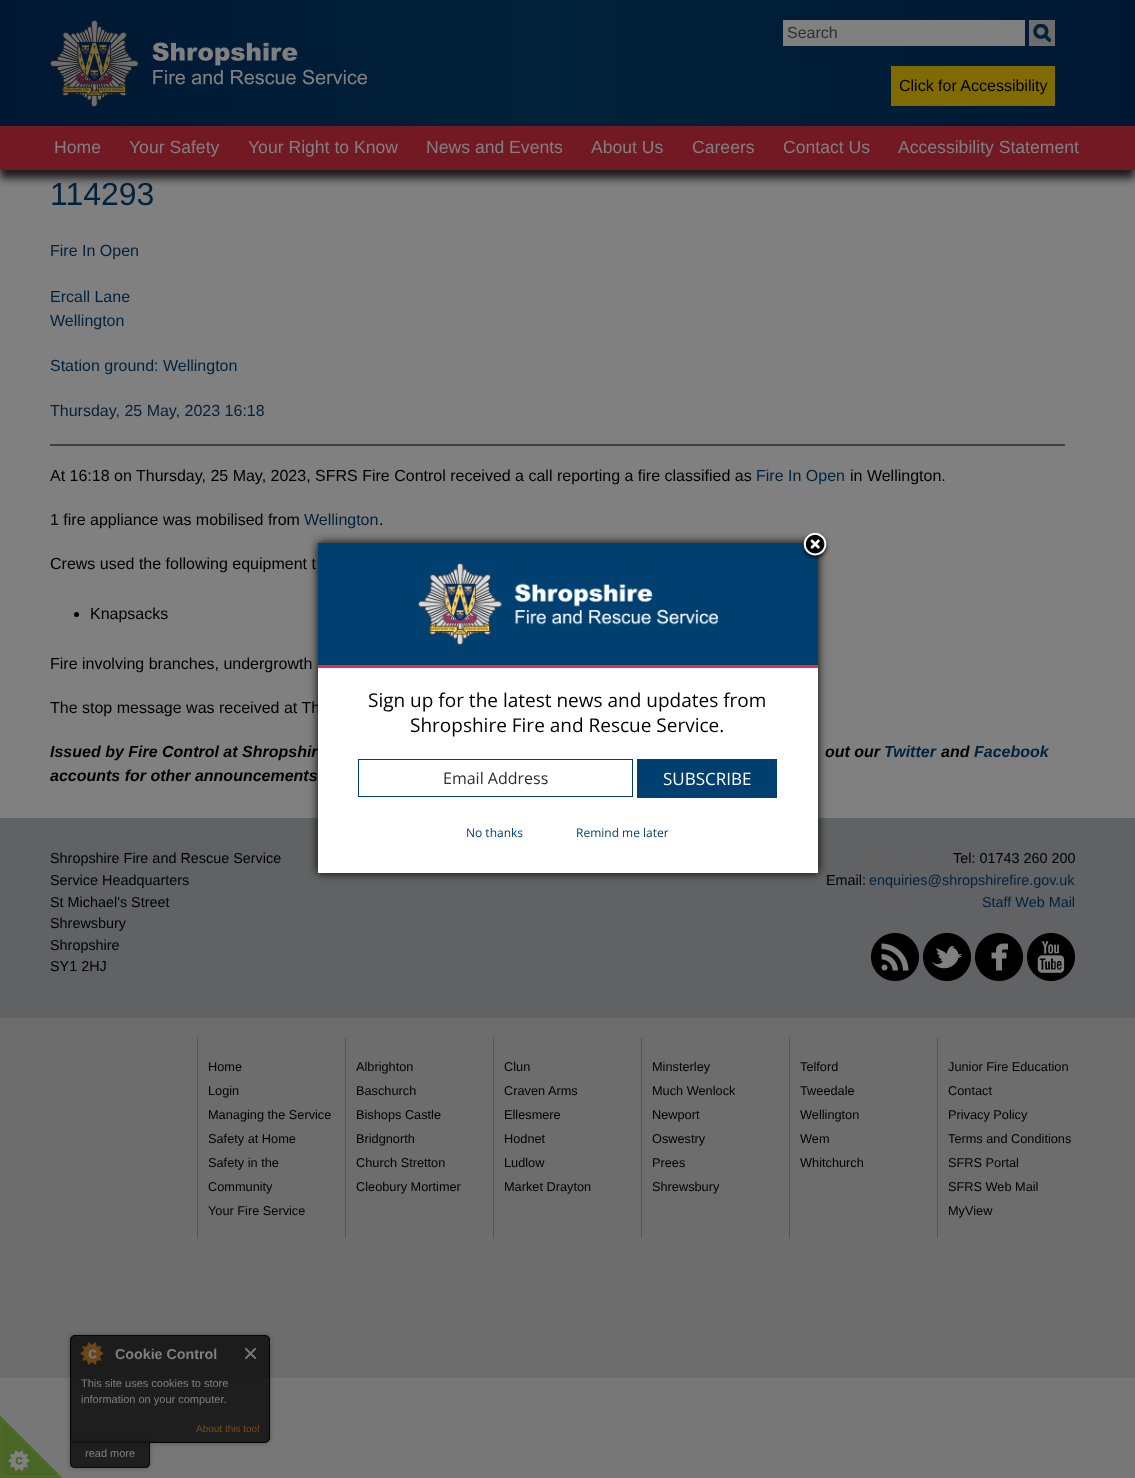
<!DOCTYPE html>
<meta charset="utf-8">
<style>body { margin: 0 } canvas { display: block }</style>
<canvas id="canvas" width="1135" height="1478"></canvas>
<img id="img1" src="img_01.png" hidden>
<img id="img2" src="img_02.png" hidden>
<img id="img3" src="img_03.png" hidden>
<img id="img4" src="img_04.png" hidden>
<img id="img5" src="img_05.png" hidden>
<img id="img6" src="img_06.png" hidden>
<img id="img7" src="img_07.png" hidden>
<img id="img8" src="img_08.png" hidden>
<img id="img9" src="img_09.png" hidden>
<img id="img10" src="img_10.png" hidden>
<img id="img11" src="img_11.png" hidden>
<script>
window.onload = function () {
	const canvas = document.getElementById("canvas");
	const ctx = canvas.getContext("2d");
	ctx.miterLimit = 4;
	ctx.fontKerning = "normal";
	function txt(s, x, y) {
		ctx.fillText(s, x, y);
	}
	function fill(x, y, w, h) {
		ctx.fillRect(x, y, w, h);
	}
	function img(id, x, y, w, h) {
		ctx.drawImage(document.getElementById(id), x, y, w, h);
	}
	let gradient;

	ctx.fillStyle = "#787777";
	fill(0, 0, 1135, 1478);
	ctx.fillStyle = "#6D6D6E";
	fill(0, 1018, 1135, 360);
	gradient = ctx.createLinearGradient(0, 63, 1135, 63);
	gradient.addColorStop(0, "#001833");
	gradient.addColorStop(0.5, "#00213A");
	gradient.addColorStop(1, "#001833");
	ctx.fillStyle = gradient;
	fill(0, 0, 1135, 126);
	img("img1", 50, 20, 317, 87);
	ctx.fillStyle = "#808080";
	fill(783, 20, 242, 26);
	img("img2", 1029, 20, 26, 26);
	ctx.fillStyle = "#7F6B00";
	fill(891, 66, 164, 40);
	ctx.fillStyle = "#808080";
	fill(0, 170, 1135, 648);
	ctx.fillStyle = "#191919";
	ctx.filter = "blur(4px)";
	ctx.beginPath();
	ctx.rect(0, 134, 1135, 44);
	ctx.fill();
	ctx.filter = "none";
	ctx.fillStyle = "#731924";
	fill(0, 126, 1135, 44);
	ctx.fillStyle = "#404040";
	fill(50, 444, 1015, 2);
	ctx.fillStyle = "#000000";
	ctx.beginPath();
	ctx.arc(76.5, 614.5, 2.5, 0, Math.PI * 2);
	ctx.fill();
	ctx.fillStyle = "#616263";
	fill(0, 818, 1135, 200);
	img("img3", 871, 933, 48, 48);
	img("img4", 923, 933, 48, 48);
	img("img5", 975, 933, 48, 48);
	img("img6", 1027, 933, 48, 48);
	ctx.fillStyle = "#565657";
	fill(197, 1038, 1, 200);
	fill(345, 1038, 1, 200);
	fill(493, 1038, 1, 200);
	fill(641, 1038, 1, 200);
	fill(789, 1038, 1, 200);
	fill(937, 1038, 1, 200);
	ctx.fillStyle = "#000000";
	ctx.filter = "blur(5px)";
	ctx.beginPath();
	ctx.rect(318, 543, 500, 330);
	ctx.fill();
	ctx.filter = "none";
	ctx.fillStyle = "#004071";
	fill(318, 543, 500, 122);
	ctx.fillStyle = "#E53147";
	fill(318, 665, 500, 3);
	img("img7", 801, 532, 29, 28);
	img("img8", 418, 563, 300, 82);
	img("img9", 0, 1416, 62, 62);
	ctx.save();
	ctx.beginPath();
	ctx.moveTo(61, 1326);
	ctx.lineTo(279, 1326);
	ctx.lineTo(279, 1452);
	ctx.lineTo(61, 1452);
	ctx.closePath();
	ctx.moveTo(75, 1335);
	ctx.lineTo(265, 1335);
	ctx.bezierCurveTo(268, 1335, 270, 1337, 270, 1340);
	ctx.lineTo(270, 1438);
	ctx.bezierCurveTo(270, 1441, 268, 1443, 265, 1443);
	ctx.lineTo(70, 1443);
	ctx.lineTo(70, 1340);
	ctx.bezierCurveTo(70, 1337, 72, 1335, 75, 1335);
	ctx.closePath();
	ctx.clip("evenodd");
	ctx.fillStyle = "rgba(0, 0, 0, 0.27)";
	ctx.filter = "blur(2.5px)";
	ctx.beginPath();
	ctx.roundRect(70, 1335, 200, 108, 5);
	ctx.fill();
	ctx.filter = "none";
	ctx.restore();
	ctx.fillStyle = "rgba(10, 10, 10, 0.81)";
	ctx.beginPath();
	ctx.roundRect(70, 1335, 200, 108, [5, 5, 5, 0]);
	ctx.fill();
	ctx.beginPath();
	ctx.roundRect(70.5, 1335.5, 199, 107, [4.5, 4.5, 4.5, 0]);
	ctx.strokeStyle = "rgba(0, 0, 0, 0.9)";
	ctx.stroke();
	img("img10", 80, 1342, 24, 23);
	img("img11", 245, 1347, 12, 13);
	ctx.save();
	ctx.beginPath();
	ctx.moveTo(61, 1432);
	ctx.lineTo(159, 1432);
	ctx.lineTo(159, 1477);
	ctx.lineTo(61, 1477);
	ctx.closePath();
	ctx.moveTo(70, 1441);
	ctx.lineTo(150, 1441);
	ctx.lineTo(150, 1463);
	ctx.bezierCurveTo(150, 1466, 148, 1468, 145, 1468);
	ctx.lineTo(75, 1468);
	ctx.bezierCurveTo(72, 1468, 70, 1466, 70, 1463);
	ctx.closePath();
	ctx.clip("evenodd");
	ctx.fillStyle = "rgba(12, 12, 12, 0.3)";
	ctx.filter = "blur(2.5px)";
	ctx.beginPath();
	ctx.roundRect(70, 1441, 80, 27, 5);
	ctx.fill();
	ctx.filter = "none";
	ctx.restore();
	ctx.fillStyle = "rgba(21, 21, 21, 0.9)";
	ctx.beginPath();
	ctx.roundRect(70, 1441, 80, 27, [0, 0, 5, 5]);
	ctx.fill();
	ctx.fillStyle = "#0C0C0C";
	ctx.beginPath();
	ctx.moveTo(70, 1441);
	ctx.lineTo(150, 1441);
	ctx.lineTo(150, 1463);
	ctx.bezierCurveTo(150, 1466, 148, 1468, 145, 1468);
	ctx.lineTo(75, 1468);
	ctx.bezierCurveTo(72, 1468, 70, 1466, 70, 1463);
	ctx.closePath();
	ctx.moveTo(71, 1441);
	ctx.lineTo(149, 1441);
	ctx.lineTo(149, 1463);
	ctx.bezierCurveTo(149, 1465, 147, 1467, 145, 1467);
	ctx.lineTo(75, 1467);
	ctx.bezierCurveTo(73, 1467, 71, 1465, 71, 1463);
	ctx.closePath();
	ctx.fill("evenodd");
	ctx.font = "16px Liberation Sans";
	ctx.fillStyle = "#2F2F2F";
	txt("Search", 787, 38);
	ctx.fillStyle = "#000000";
	txt("Click for Accessibility", 899, 91);
	ctx.font = "17.6px Liberation Sans";
	ctx.fillStyle = "#808080";
	txt("Home", 54, 153);
	txt("Your Safety", 129, 153);
	txt("Your Right to Know", 248, 153);
	txt("News and Events", 426, 153);
	txt("About Us", 591, 153);
	txt("Careers", 692, 153);
	txt("Contact Us", 783, 153);
	txt("Accessibility Statement", 898, 153);
	ctx.font = "32px Liberation Sans";
	ctx.fillStyle = "#00223D";
	txt("114293", 50, 205);
	ctx.font = "16px Liberation Sans";
	txt("Fire In Open", 50, 256);
	txt("Ercall Lane", 50, 302);
	txt("Wellington", 50, 326);
	txt("Station ground: Wellington", 50, 371);
	txt("Thursday, 25 May, 2023 16:18", 50, 416);
	ctx.fillStyle = "#000000";
	txt("At 16:18 on Thursday, 25 May, 2023, SFRS Fire Control received a call reporting a fire classified as", 50, 481);
	ctx.fillStyle = "#00223D";
	txt("Fire In Open", 756, 481);
	ctx.fillStyle = "#000000";
	txt("in Wellington.", 850, 481);
	txt("1 fire appliance was mobilised from", 50, 525);
	ctx.fillStyle = "#00223D";
	txt("Wellington", 304, 525);
	ctx.fillStyle = "#000000";
	txt(".", 379, 525);
	txt("Crews used the following equipment t", 50, 569);
	txt("Knapsacks", 90, 619);
	txt("Fire involving branches, undergrowth", 50, 669);
	txt("The stop message was received at Th", 50, 713);
	ctx.font = "italic bold 16px Liberation Sans";
	txt("Issued by Fire Control at Shropshir", 50, 757);
	txt("out our", 825, 757);
	ctx.fillStyle = "#00223D";
	txt("Twitter", 884, 757);
	ctx.fillStyle = "#000000";
	txt("and", 941, 757);
	ctx.fillStyle = "#00223D";
	txt("Facebook", 974, 757);
	ctx.fillStyle = "#000000";
	txt("accounts for other announcements", 50, 781);
	ctx.font = "14.4px Liberation Sans";
	txt("Shropshire Fire and Rescue Service", 50, 863);
	txt("Service Headquarters", 50, 885);
	txt("St Michael's Street", 50, 907);
	txt("Shrewsbury", 50, 928);
	txt("Shropshire", 50, 950);
	txt("SY1 2HJ", 50, 971);
	txt("Tel: 01743 260 200", 953, 863);
	txt("Email:", 826, 885);
	ctx.fillStyle = "#00223D";
	txt("enquiries@shropshirefire.gov.uk", 869, 885);
	txt("Staff Web Mail", 982, 907);
	ctx.font = "12.75px Liberation Sans";
	ctx.fillStyle = "#000000";
	txt("Home", 208, 1071);
	txt("Login", 208, 1095);
	txt("Managing the Service", 208, 1119);
	txt("Safety at Home", 208, 1143);
	txt("Safety in the", 208, 1167);
	txt("Community", 208, 1191);
	txt("Your Fire Service", 208, 1215);
	txt("Albrighton", 356, 1071);
	txt("Baschurch", 356, 1095);
	txt("Bishops Castle", 356, 1119);
	txt("Bridgnorth", 356, 1143);
	txt("Church Stretton", 356, 1167);
	txt("Cleobury Mortimer", 356, 1191);
	txt("Clun", 504, 1071);
	txt("Craven Arms", 504, 1095);
	txt("Ellesmere", 504, 1119);
	txt("Hodnet", 504, 1143);
	txt("Ludlow", 504, 1167);
	txt("Market Drayton", 504, 1191);
	txt("Minsterley", 652, 1071);
	txt("Much Wenlock", 652, 1095);
	txt("Newport", 652, 1119);
	txt("Oswestry", 652, 1143);
	txt("Prees", 652, 1167);
	txt("Shrewsbury", 652, 1191);
	txt("Telford", 800, 1071);
	txt("Tweedale", 800, 1095);
	txt("Wellington", 800, 1119);
	txt("Wem", 800, 1143);
	txt("Whitchurch", 800, 1167);
	txt("Junior Fire Education", 948, 1071);
	txt("Contact", 948, 1095);
	txt("Privacy Policy", 948, 1119);
	txt("Terms and Conditions", 948, 1143);
	txt("SFRS Portal", 948, 1167);
	txt("SFRS Web Mail", 948, 1191);
	txt("MyView", 948, 1215);
	ctx.fillStyle = "#FFFFFF";
	fill(318, 668, 500, 205);
	ctx.font = "19px Open Sans";
	ctx.fillStyle = "#000000";
	txt("Sign up for the latest news and updates from", 368, 707);
	txt("Shropshire Fire and Rescue Service.", 410, 732);
	ctx.strokeStyle = "#004071";
	ctx.strokeRect(358.5, 759.5, 274, 37);
	ctx.font = "16px Open Sans";
	ctx.fillStyle = "#2F2F2F";
	txt("Email Address", 443, 784);
	ctx.fillStyle = "#004071";
	fill(637, 759, 140, 39);
	ctx.font = "17px Open Sans";
	ctx.fillStyle = "#FFFFFF";
	txt("SUBSCRIBE", 663, 785);
	ctx.font = "12px Open Sans";
	ctx.fillStyle = "#004071";
	txt("No thanks", 466, 837);
	txt("Remind me later", 576, 837);
	ctx.font = "bold 14.25px Liberation Sans";
	ctx.fillStyle = "#808080";
	txt("Cookie Control", 115, 1359);
	ctx.font = "11px Liberation Sans";
	txt("This site uses cookies to store", 81, 1387);
	txt("information on your computer.", 81, 1403);
	ctx.font = "10px Liberation Sans";
	ctx.fillStyle = "#784F1F";
	txt("About this tool", 196, 1432);
	ctx.font = "11px Liberation Sans";
	ctx.fillStyle = "#808080";
	txt("read more", 85, 1457);
};
</script>
